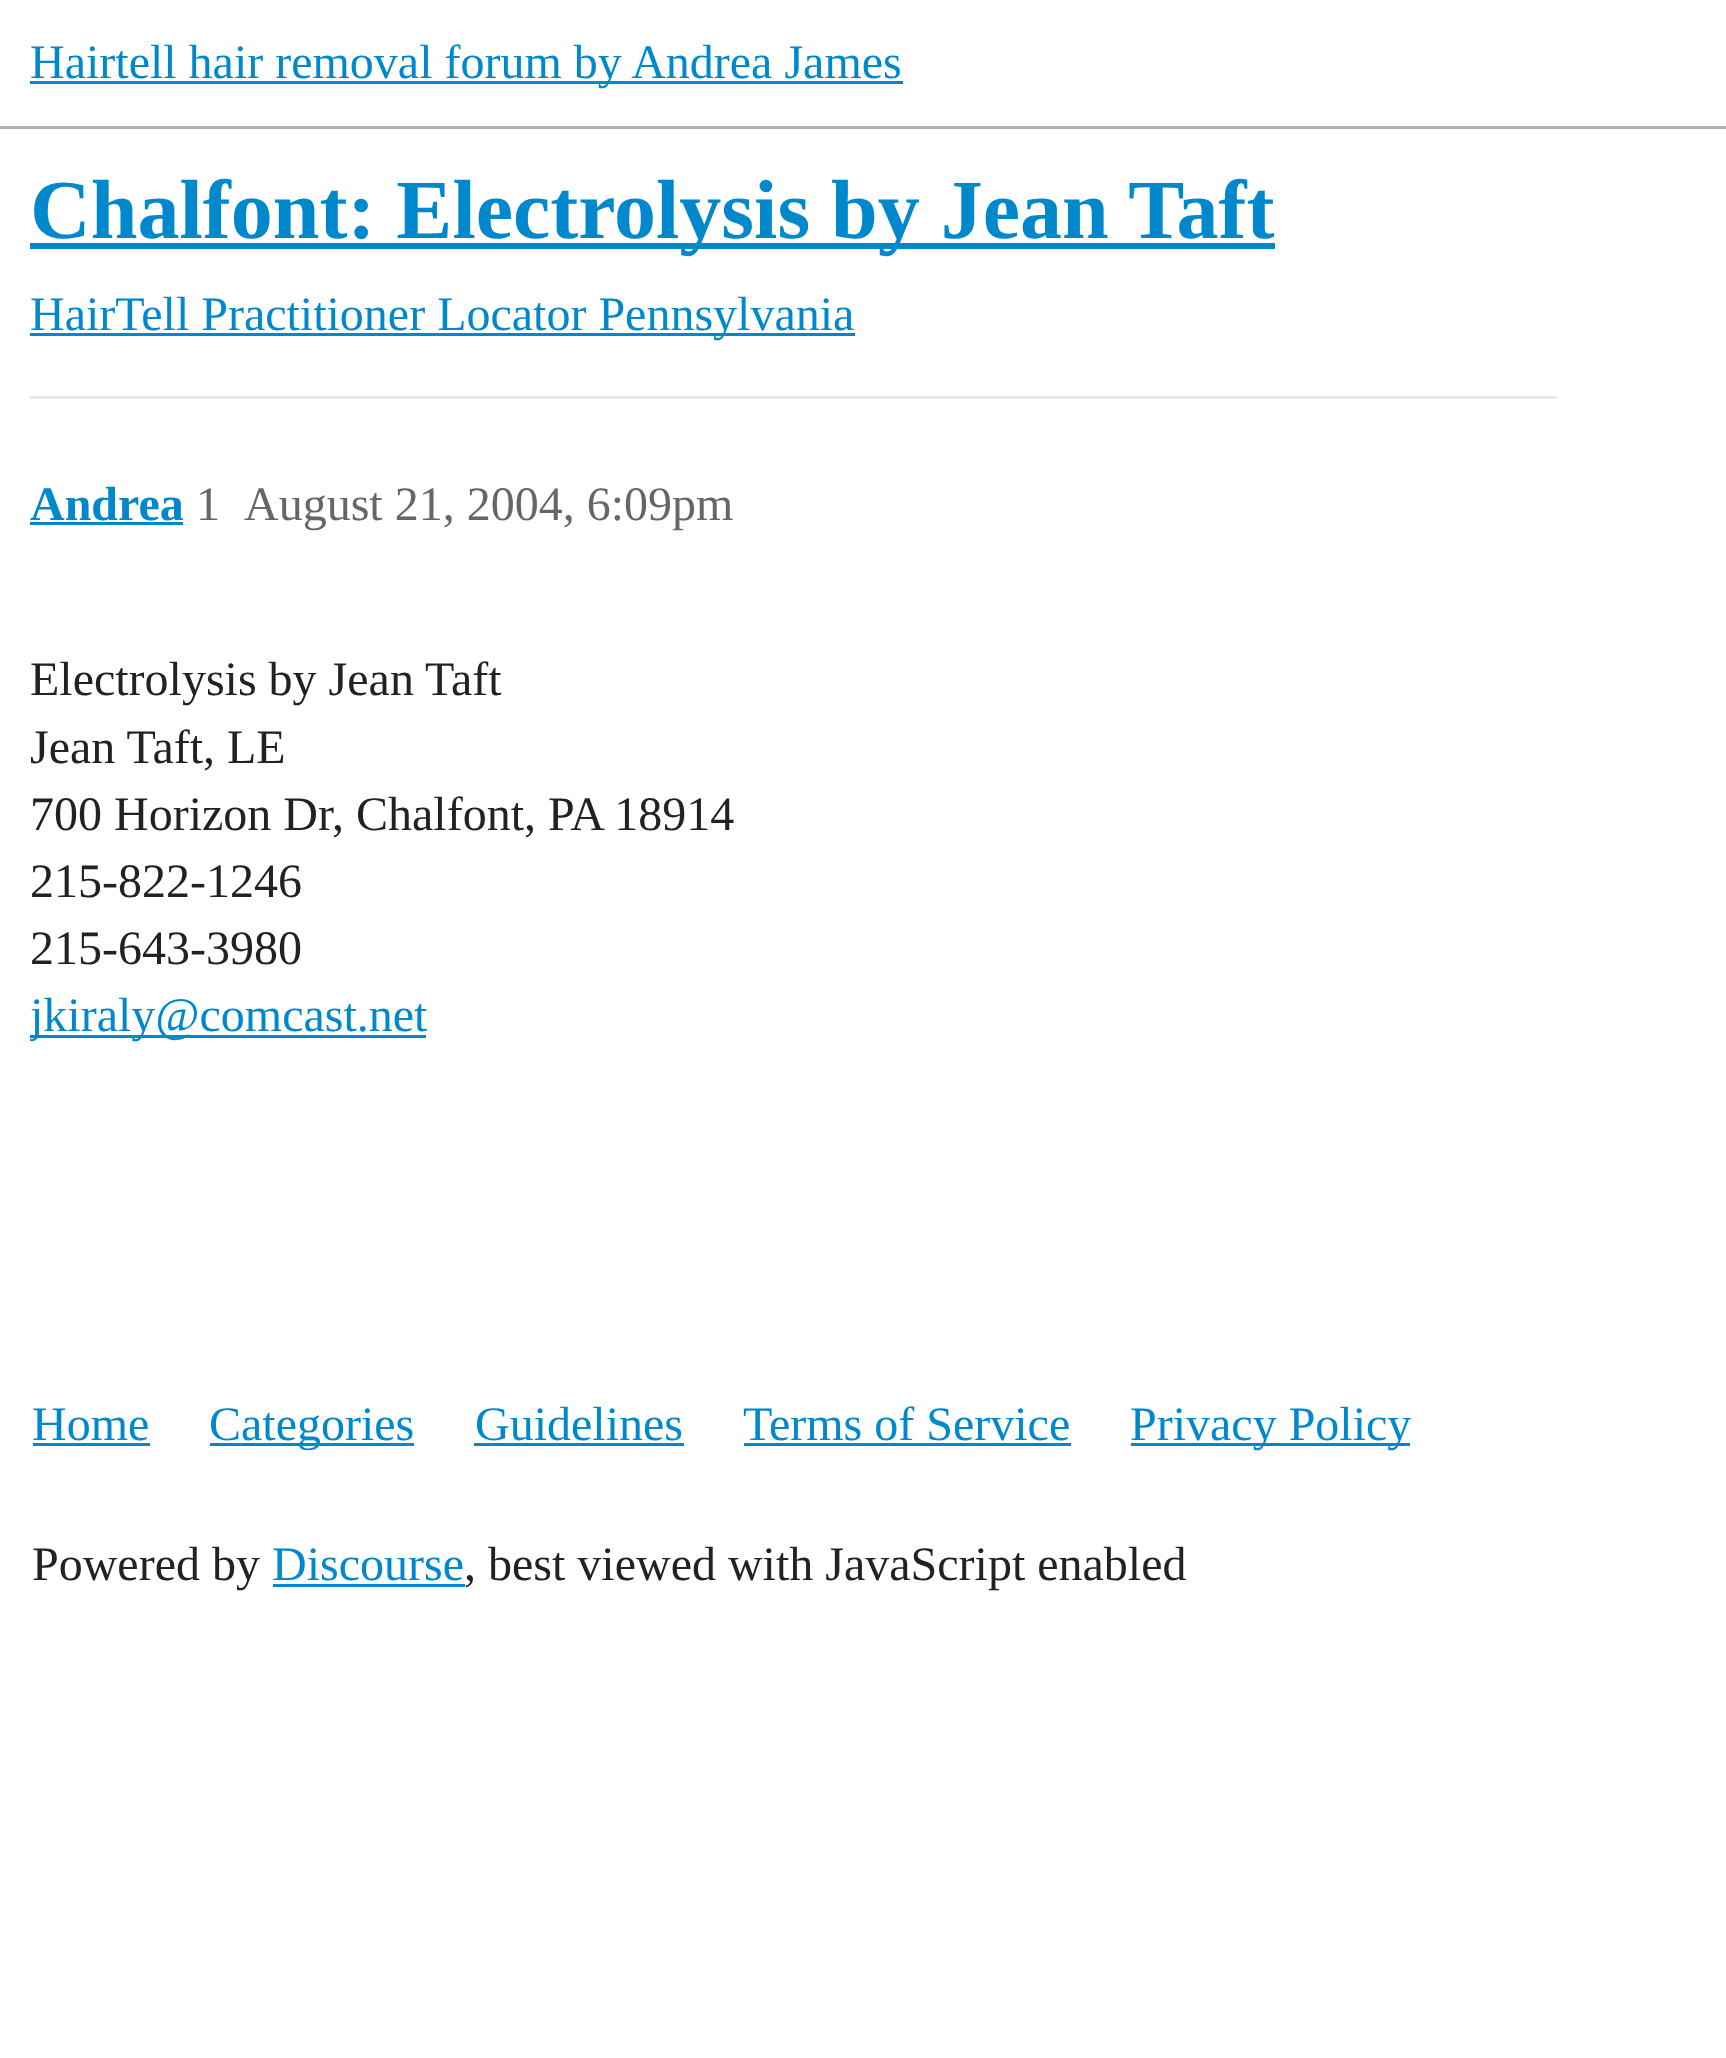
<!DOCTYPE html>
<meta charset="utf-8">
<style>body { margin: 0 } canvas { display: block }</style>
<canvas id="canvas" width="1726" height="2058"></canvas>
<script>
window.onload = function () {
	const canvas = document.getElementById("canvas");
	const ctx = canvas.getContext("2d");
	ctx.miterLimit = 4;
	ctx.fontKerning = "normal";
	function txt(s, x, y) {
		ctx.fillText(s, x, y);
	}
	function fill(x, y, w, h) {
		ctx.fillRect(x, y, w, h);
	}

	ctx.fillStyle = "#FFFFFF";
	fill(0, 0, 1726, 2058);
	ctx.fillStyle = "#AFAFAF";
	fill(0, 126, 1726, 3);
	ctx.fillStyle = "#0088CC";
	fill(30, 81, 873, 3);
	fill(30, 243, 1245, 6);
	fill(30, 333, 825, 3);
	ctx.fillStyle = "#E9E9E9";
	fill(30, 396, 1527, 3);
	ctx.fillStyle = "#0088CC";
	fill(30, 522, 153, 3);
	fill(30, 1035, 396, 3);
	fill(33, 1443, 117, 3);
	fill(210, 1443, 204, 3);
	fill(474, 1443, 210, 3);
	fill(744, 1443, 327, 3);
	fill(1131, 1443, 279, 3);
	fill(273, 1584, 192, 3);
	ctx.font = "48px Liberation Serif";
	txt("Hairtell hair removal forum by Andrea James", 30, 78);
	ctx.font = "bold 84px Liberation Serif";
	txt("Chalfont: Electrolysis by Jean Taft", 30, 238);
	ctx.font = "48px Liberation Serif";
	txt("HairTell Practitioner Locator Pennsylvania", 30, 330);
	ctx.font = "bold 48px Liberation Serif";
	txt("Andrea", 30, 520);
	ctx.font = "48px Liberation Serif";
	ctx.fillStyle = "#666666";
	txt("1", 196, 520);
	txt("August 21, 2004, 6:09pm", 244, 520);
	ctx.fillStyle = "#222222";
	txt("Electrolysis by Jean Taft", 30, 695);
	txt("Jean Taft, LE", 30, 763);
	txt("700 Horizon Dr, Chalfont, PA 18914", 30, 830);
	txt("215-822-1246", 30, 897);
	txt("215-643-3980", 30, 964);
	ctx.save();
	ctx.beginPath();
	ctx.rect(30, 600, 1527, 498);
	ctx.clip();
	ctx.fillStyle = "#0088CC";
	txt("jkiraly@comcast.net", 30, 1031);
	ctx.restore();
	ctx.fillStyle = "#0088CC";
	txt("Home", 32, 1440);
	txt("Categories", 209, 1440);
	txt("Guidelines", 475, 1440);
	txt("Terms of Service", 743, 1440);
	txt("Privacy Policy", 1130, 1440);
	ctx.fillStyle = "#222222";
	txt("Powered by", 32, 1580);
	ctx.fillStyle = "#0088CC";
	txt("Discourse", 272, 1580);
	ctx.fillStyle = "#222222";
	txt(", best viewed with JavaScript enabled", 464, 1580);
};
</script>
